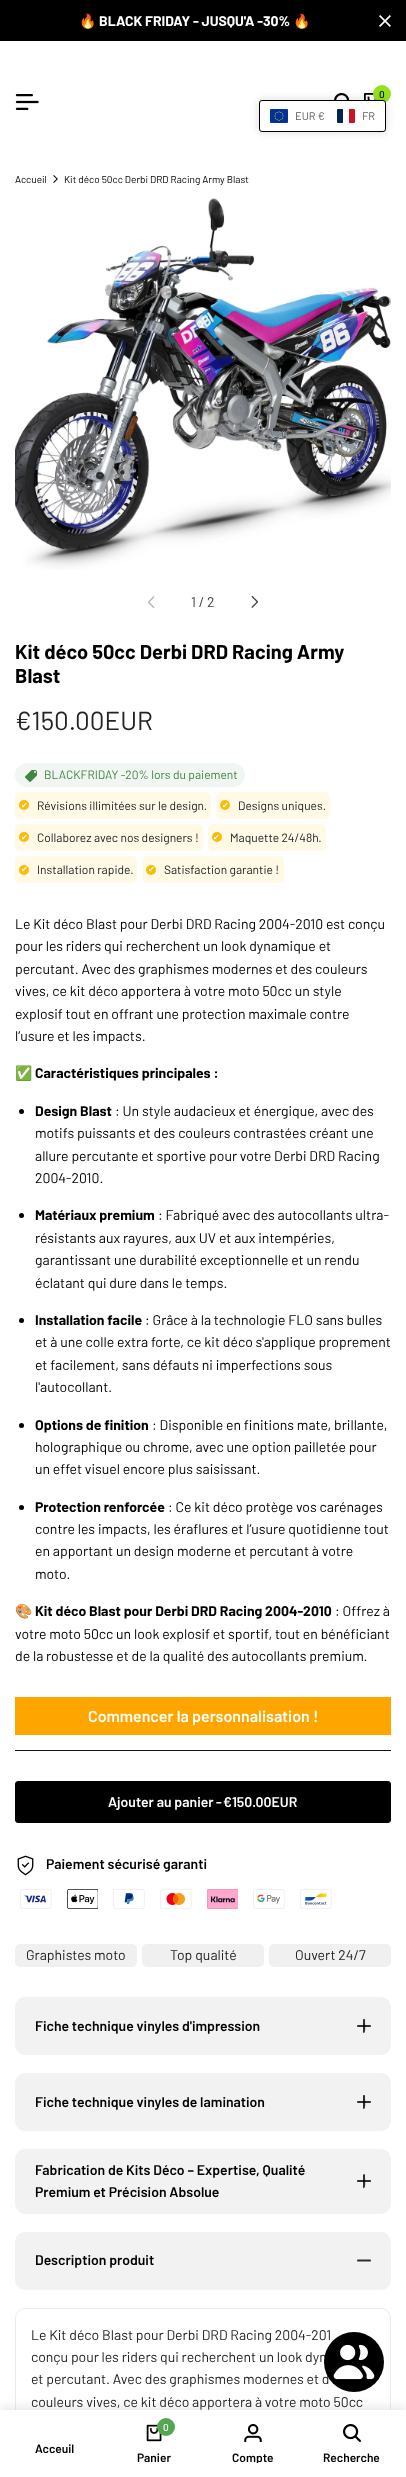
<!DOCTYPE html>
<meta charset="utf-8">
<style>body { margin: 0 } canvas { display: block }</style>
<canvas id="canvas" width="406" height="2477"></canvas>
<img id="img1" src="img_01.png" hidden>
<img id="img2" src="img_02.png" hidden>
<img id="img3" src="img_03.png" hidden>
<img id="img4" src="img_04.png" hidden>
<img id="img5" src="img_05.png" hidden>
<img id="img6" src="img_06.png" hidden>
<img id="img7" src="img_07.png" hidden>
<img id="img8" src="img_08.png" hidden>
<img id="img9" src="img_09.png" hidden>
<img id="img10" src="img_10.png" hidden>
<img id="img11" src="img_11.png" hidden>
<img id="img12" src="img_12.png" hidden>
<img id="img13" src="img_13.png" hidden>
<img id="img14" src="img_14.png" hidden>
<img id="img15" src="img_15.png" hidden>
<img id="img16" src="img_16.png" hidden>
<img id="img17" src="img_17.png" hidden>
<img id="img18" src="img_18.png" hidden>
<img id="img19" src="img_20.png" hidden>
<img id="img20" src="img_21.png" hidden>
<img id="img21" src="img_22.png" hidden>
<img id="img22" src="img_19.png" hidden>
<script>
window.onload = function () {
	const canvas = document.getElementById("canvas");
	const ctx = canvas.getContext("2d");
	ctx.miterLimit = 4;
	ctx.fontKerning = "normal";
	function txt(s, x, y) {
		ctx.fillText(s, x, y);
	}
	function fill(x, y, w, h) {
		ctx.fillRect(x, y, w, h);
	}
	function round(x, y, w, h, r) {
		ctx.beginPath();
		ctx.roundRect(x, y, w, h, r);
		ctx.fill();
	}
	function img(id, x, y, w, h) {
		ctx.drawImage(document.getElementById(id), x, y, w, h);
	}

	ctx.fillStyle = "#FFFFFF";
	fill(0, 0, 406, 2477);
	ctx.fillStyle = "#000000";
	fill(0, 0, 406, 41);
	img("img1", 379, 15, 12, 12);
	img("img2", 15, 94, 24, 16);
	img("img3", 334, 93, 16, 7);
	img("img4", 364, 93, 12, 7);
	ctx.fillStyle = "#94E120";
	ctx.beginPath();
	ctx.arc(382, 94, 9, 0, Math.PI * 2);
	ctx.fill();
	ctx.fillStyle = "rgba(0, 0, 0, 0.15)";
	ctx.filter = "blur(5px)";
	ctx.beginPath();
	ctx.roundRect(259, 100, 127, 32, 3);
	ctx.fill();
	ctx.filter = "none";
	ctx.fillStyle = "#FFFFFF";
	ctx.beginPath();
	ctx.roundRect(259.5, 100.5, 126, 31, 2.5);
	ctx.fill();
	ctx.strokeStyle = "#000000";
	ctx.stroke();
	img("img5", 270, 109, 18, 14);
	ctx.fillStyle = "#002654";
	ctx.beginPath();
	ctx.roundRect(337, 109, 6, 14, [1, 0, 0, 1]);
	ctx.fill();
	ctx.fillStyle = "#CE1126";
	ctx.beginPath();
	ctx.roundRect(349, 109, 6, 14, [0, 1, 1, 0]);
	ctx.fill();
	img("img6", 53, 175, 5, 8);
	img("img7", 15, 198, 376, 372);
	img("img8", 147, 596, 8, 13);
	img("img9", 251, 596, 8, 12);
	ctx.fillStyle = "#F2F6F2";
	round(15, 763, 230, 24, 12);
	img("img10", 25, 770, 12, 12);
	ctx.fillStyle = "#FFF9E6";
	round(15, 792, 196, 27, 5);
	ctx.fillStyle = "#FBBC05";
	ctx.beginPath();
	ctx.arc(24, 805, 5, 0, Math.PI * 2);
	ctx.fill();
	ctx.fillStyle = "#FFF9E6";
	round(216, 792, 114, 27, 5);
	ctx.fillStyle = "#FBBC05";
	ctx.beginPath();
	ctx.arc(225, 805, 5, 0, Math.PI * 2);
	ctx.fill();
	ctx.fillStyle = "#FFF9E6";
	round(15, 824, 188, 27, 5);
	ctx.fillStyle = "#FBBC05";
	ctx.beginPath();
	ctx.arc(24, 837, 5, 0, Math.PI * 2);
	ctx.fill();
	ctx.fillStyle = "#FFF9E6";
	round(208, 824, 118, 27, 5);
	ctx.fillStyle = "#FBBC05";
	ctx.beginPath();
	ctx.arc(217, 837, 5, 0, Math.PI * 2);
	ctx.fill();
	ctx.fillStyle = "#FFF9E6";
	round(15, 856, 122, 27, 5);
	ctx.fillStyle = "#FBBC05";
	ctx.beginPath();
	ctx.arc(24, 870, 5, 0, Math.PI * 2);
	ctx.fill();
	ctx.fillStyle = "#FFF9E6";
	round(142, 856, 142, 27, 5);
	ctx.fillStyle = "#FBBC05";
	ctx.beginPath();
	ctx.arc(151, 870, 5, 0, Math.PI * 2);
	ctx.fill();
	ctx.fillStyle = "#000000";
	ctx.beginPath();
	ctx.arc(21.5, 1111.5, 2.5, 0, Math.PI * 2);
	ctx.fill();
	ctx.beginPath();
	ctx.arc(21.5, 1215.5, 2.5, 0, Math.PI * 2);
	ctx.fill();
	ctx.beginPath();
	ctx.arc(21.5, 1320.5, 2.5, 0, Math.PI * 2);
	ctx.fill();
	ctx.beginPath();
	ctx.arc(21.5, 1425.5, 2.5, 0, Math.PI * 2);
	ctx.fill();
	ctx.beginPath();
	ctx.arc(21.5, 1507.5, 2.5, 0, Math.PI * 2);
	ctx.fill();
	ctx.fillStyle = "#121212";
	fill(15, 1750, 376, 1);
	ctx.fillStyle = "#FFA500";
	fill(15, 1697, 376, 38);
	ctx.fillStyle = "#000000";
	ctx.beginPath();
	ctx.roundRect(15.5, 1781.5, 375, 41, 2.5);
	ctx.fill();
	ctx.stroke();
	img("img11", 17, 1855, 17, 21);
	img("img12", 20, 1889, 32, 20);
	img("img13", 67, 1889, 31, 20);
	img("img14", 113, 1889, 32, 20);
	img("img15", 160, 1889, 32, 20);
	img("img16", 207, 1889, 31, 20);
	img("img17", 253, 1889, 32, 20);
	img("img18", 300, 1889, 32, 20);
	ctx.fillStyle = "#F0F0F0";
	round(15, 1944, 122, 23, 5);
	round(142, 1944, 122, 23, 5);
	round(269, 1944, 122, 23, 5);
	ctx.fillStyle = "#F2F2F2";
	round(15, 1997, 376, 58, 10);
	ctx.fillStyle = "#303030";
	ctx.beginPath();
	ctx.moveTo(363, 2032);
	ctx.lineTo(363, 2019.5);
	ctx.lineTo(364, 2019);
	ctx.bezierCurveTo(365.5, 2018.5, 365, 2021, 365, 2022);
	ctx.bezierCurveTo(365, 2023.5, 366, 2032.5, 364, 2033);
	ctx.bezierCurveTo(363.5, 2033, 363, 2032.5, 363, 2032);
	ctx.closePath();
	ctx.fill();
	ctx.fillStyle = "rgba(0, 0, 0, 0.8)";
	ctx.beginPath();
	ctx.moveTo(357, 2026);
	ctx.bezierCurveTo(357, 2025.5, 357.5, 2025, 358, 2025);
	ctx.lineTo(370, 2025);
	ctx.bezierCurveTo(370.5, 2025, 371, 2025.5, 371, 2026);
	ctx.bezierCurveTo(371, 2026.5, 370.5, 2027, 370, 2027);
	ctx.lineTo(358, 2027);
	ctx.bezierCurveTo(357.5, 2027, 357, 2026.5, 357, 2026);
	ctx.closePath();
	ctx.fill();
	ctx.fillStyle = "#F2F2F2";
	round(15, 2073, 376, 58, 10);
	ctx.fillStyle = "#303030";
	ctx.beginPath();
	ctx.moveTo(363, 2108);
	ctx.lineTo(363, 2095.5);
	ctx.lineTo(364, 2095);
	ctx.bezierCurveTo(365.5, 2094.5, 365, 2097, 365, 2098);
	ctx.bezierCurveTo(365, 2099.5, 366, 2108.5, 364, 2109);
	ctx.bezierCurveTo(363.5, 2109, 363, 2108.5, 363, 2108);
	ctx.closePath();
	ctx.fill();
	ctx.fillStyle = "rgba(0, 0, 0, 0.8)";
	ctx.beginPath();
	ctx.moveTo(357, 2102);
	ctx.bezierCurveTo(357, 2101.5, 357.5, 2101, 358, 2101);
	ctx.lineTo(370, 2101);
	ctx.bezierCurveTo(370.5, 2101, 371, 2101.5, 371, 2102);
	ctx.bezierCurveTo(371, 2102.5, 370.5, 2103, 370, 2103);
	ctx.lineTo(358, 2103);
	ctx.bezierCurveTo(357.5, 2103, 357, 2102.5, 357, 2102);
	ctx.closePath();
	ctx.fill();
	ctx.fillStyle = "#F2F2F2";
	round(15, 2149, 376, 65, 10);
	ctx.fillStyle = "#303030";
	ctx.beginPath();
	ctx.moveTo(363, 2187);
	ctx.lineTo(363, 2175);
	ctx.lineTo(364, 2174);
	ctx.bezierCurveTo(365.5, 2174, 365, 2176.5, 365, 2177);
	ctx.bezierCurveTo(365, 2179, 366, 2188, 364, 2188);
	ctx.bezierCurveTo(363.5, 2188.5, 363, 2188, 363, 2187);
	ctx.closePath();
	ctx.fill();
	ctx.fillStyle = "rgba(0, 0, 0, 0.8)";
	ctx.beginPath();
	ctx.moveTo(357, 2181);
	ctx.bezierCurveTo(357, 2180.5, 357.5, 2180, 358, 2180);
	ctx.lineTo(370, 2180);
	ctx.bezierCurveTo(370.5, 2180, 371, 2180.5, 371, 2181);
	ctx.bezierCurveTo(371, 2182, 370.5, 2182, 370, 2182);
	ctx.lineTo(358, 2182);
	ctx.bezierCurveTo(357.5, 2182, 357, 2182, 357, 2181);
	ctx.closePath();
	ctx.fill();
	ctx.fillStyle = "#F2F2F2";
	round(15, 2232, 376, 58, 10);
	ctx.fillStyle = "#303030";
	ctx.beginPath();
	ctx.moveTo(371, 2260.5);
	ctx.bezierCurveTo(371, 2261, 370.5, 2261.5, 370, 2261.5);
	ctx.lineTo(358, 2261.5);
	ctx.bezierCurveTo(357.5, 2261.5, 357, 2261, 357, 2260.5);
	ctx.bezierCurveTo(357, 2260, 357.5, 2259.5, 358, 2259.5);
	ctx.lineTo(370, 2259.5);
	ctx.bezierCurveTo(370.5, 2259.5, 371, 2260, 371, 2260.5);
	ctx.closePath();
	ctx.fill();
	ctx.beginPath();
	ctx.roundRect(15.5, 2308.5, 375, 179, 9.5);
	ctx.strokeStyle = "#EBEBEB";
	ctx.stroke();
	ctx.fillStyle = "rgba(0, 0, 0, 0.08)";
	ctx.filter = "blur(5px)";
	ctx.beginPath();
	ctx.rect(0, 2406, 406, 67);
	ctx.fill();
	ctx.filter = "none";
	ctx.fillStyle = "#FFFFFF";
	fill(0, 2410, 406, 67);
	img("img19", 146, 2424, 16, 18);
	ctx.fillStyle = "#55A653";
	ctx.beginPath();
	ctx.arc(166, 2427, 9, 0, Math.PI * 2);
	ctx.fill();
	img("img20", 244, 2424, 18, 18);
	img("img21", 343, 2424, 18, 18);
	ctx.font = "bold 14px Noto Color Emoji";
	ctx.fillStyle = "#FFFFFF";
	txt("🔥", 79, 26);
	ctx.font = "bold 14px Barlow";
	txt("BLACK FRIDAY - JUSQU'A -30%", 99, 26);
	ctx.font = "bold 14px Noto Color Emoji";
	txt("🔥", 293, 26);
	ctx.font = "500 10px Barlow";
	ctx.fillStyle = "#000000";
	txt("0", 379, 98);
	ctx.font = "11px Barlow";
	ctx.fillStyle = "#5C5C5C";
	txt("EUR €", 295, 120);
	txt("FR", 362, 120);
	ctx.font = "10px Barlow";
	ctx.fillStyle = "#000000";
	txt("Accueil", 15, 183);
	txt("Kit déco 50cc Derbi DRD Racing Army Blast", 64, 183);
	ctx.font = "14px Barlow";
	ctx.fillStyle = "#404040";
	txt("1 / 2", 191, 607);
	ctx.font = "bold 20px Barlow";
	ctx.fillStyle = "#000000";
	txt("Kit déco 50cc Derbi DRD Racing Army", 15, 659);
	txt("Blast", 15, 683);
	ctx.font = "26px Barlow";
	ctx.fillStyle = "#232323";
	txt("€150.00EUR", 15, 730);
	ctx.font = "12px Barlow";
	ctx.fillStyle = "#428445";
	txt("BLACKFRIDAY -20% lors du paiement", 44, 779);
	ctx.font = "8px DejaVu Sans";
	ctx.fillStyle = "#FFFFFF";
	txt("✔", 21, 808);
	ctx.font = "12px Barlow";
	ctx.fillStyle = "#232323";
	txt("Révisions illimitées sur le design.", 37, 810);
	ctx.font = "8px DejaVu Sans";
	ctx.fillStyle = "#FFFFFF";
	txt("✔", 222, 808);
	ctx.font = "12px Barlow";
	ctx.fillStyle = "#232323";
	txt("Designs uniques.", 238, 810);
	ctx.font = "8px DejaVu Sans";
	ctx.fillStyle = "#FFFFFF";
	txt("✔", 21, 840);
	ctx.font = "12px Barlow";
	ctx.fillStyle = "#232323";
	txt("Collaborez avec nos designers !", 37, 842);
	ctx.font = "8px DejaVu Sans";
	ctx.fillStyle = "#FFFFFF";
	txt("✔", 213, 840);
	ctx.font = "12px Barlow";
	ctx.fillStyle = "#232323";
	txt("Maquette 24/48h.", 230, 842);
	ctx.font = "8px DejaVu Sans";
	ctx.fillStyle = "#FFFFFF";
	txt("✔", 21, 872);
	ctx.font = "12px Barlow";
	ctx.fillStyle = "#232323";
	txt("Installation rapide.", 37, 874);
	ctx.font = "8px DejaVu Sans";
	ctx.fillStyle = "#FFFFFF";
	txt("✔", 148, 872);
	ctx.font = "12px Barlow";
	ctx.fillStyle = "#232323";
	txt("Satisfaction garantie !", 164, 874);
	ctx.font = "14px Barlow";
	ctx.fillStyle = "#000000";
	txt("Le Kit déco Blast pour Derbi DRD Racing 2004-2010 est conçu", 15, 929);
	txt("pour les riders qui recherchent un look dynamique et", 15, 951);
	txt("percutant. Avec des graphismes modernes et des couleurs", 15, 974);
	txt("vives, ce kit déco apportera à votre moto 50cc un style", 15, 996);
	txt("explosif tout en offrant une protection maximale contre", 15, 1019);
	txt("l’usure et les impacts.", 15, 1041);
	ctx.font = "14px Noto Color Emoji";
	txt("✅", 15, 1078);
	ctx.font = "bold 14px Barlow";
	txt("Caractéristiques principales :", 35, 1078);
	txt("Design Blast", 35, 1116);
	ctx.font = "14px Barlow";
	txt(": Un style audacieux et énergique, avec des", 115, 1116);
	txt("motifs puissants et des couleurs contrastées créant une", 35, 1138);
	txt("allure percutante et sportive pour votre Derbi DRD Racing", 35, 1161);
	txt("2004-2010.", 35, 1183);
	ctx.font = "bold 14px Barlow";
	txt("Matériaux premium", 35, 1220);
	ctx.font = "14px Barlow";
	txt(": Fabriqué avec des autocollants ultra-", 158, 1220);
	txt("résistants aux rayures, aux UV et aux intempéries,", 35, 1243);
	txt("garantissant une durabilité exceptionnelle et un rendu", 35, 1265);
	txt("éclatant qui dure dans le temps.", 35, 1288);
	ctx.font = "bold 14px Barlow";
	txt("Installation facile", 35, 1325);
	ctx.font = "14px Barlow";
	txt(": Grâce à la technologie FLO sans bulles", 145, 1325);
	txt("et à une colle extra forte, ce kit déco s'applique proprement", 35, 1347);
	txt("et facilement, sans défauts ni imperfections sous", 35, 1370);
	txt("l'autocollant.", 35, 1392);
	ctx.font = "bold 14px Barlow";
	txt("Options de finition", 35, 1430);
	ctx.font = "14px Barlow";
	txt(": Disponible en finitions mate, brillante,", 152, 1430);
	txt("holographique ou chrome, avec une option pailletée pour", 35, 1452);
	txt("un effet visuel encore plus saisissant.", 35, 1474);
	ctx.font = "bold 14px Barlow";
	txt("Protection renforcée", 35, 1512);
	ctx.font = "14px Barlow";
	txt(": Ce kit déco protège vos carénages", 168, 1512);
	txt("contre les impacts, les éraflures et l’usure quotidienne tout", 35, 1534);
	txt("en apportant un design moderne et percutant à votre", 35, 1556);
	txt("moto.", 35, 1579);
	ctx.font = "14px Noto Color Emoji";
	txt("🎨", 15, 1616);
	ctx.font = "bold 14px Barlow";
	txt("Kit déco Blast pour Derbi DRD Racing 2004-2010", 35, 1616);
	ctx.font = "14px Barlow";
	txt(": Offrez à", 335, 1616);
	txt("votre moto 50cc un look explosif et sportif, tout en bénéficiant", 15, 1639);
	txt("de la robustesse et de la qualité des autocollants premium.", 15, 1661);
	ctx.font = "600 16px Barlow";
	ctx.fillStyle = "#FFFFFF";
	txt("Commencer la personnalisation !", 88, 1722);
	ctx.font = "600 14px Barlow";
	txt("Ajouter au panier", 108, 1807);
	txt("-", 216, 1807);
	txt("€150.00EUR", 223, 1807);
	ctx.fillStyle = "#000000";
	txt("Paiement sécurisé garanti", 46, 1869);
	ctx.font = "14px Barlow";
	ctx.fillStyle = "#232323";
	txt("Graphistes moto", 26, 1960);
	txt("Top qualité", 170, 1960);
	txt("Ouvert 24/7", 295, 1960);
	ctx.font = "600 14px Barlow";
	ctx.fillStyle = "#000000";
	txt("Fiche technique vinyles d'impression", 35, 2031);
	txt("Fiche technique vinyles de lamination", 35, 2107);
	txt("Fabrication de Kits Déco – Expertise, Qualité", 35, 2175);
	txt("Premium et Précision Absolue", 35, 2197);
	txt("Description produit", 35, 2265);
	ctx.font = "14px Barlow";
	ctx.fillStyle = "#232323";
	txt("Le Kit déco Blast pour Derbi DRD Racing 2004-201", 31, 2340);
	txt("conçu pour les riders qui recherchent un look dyn", 31, 2362);
	txt("et percutant. Avec des graphismes modernes et d", 31, 2384);
	txt("couleurs vives, ce kit déco apportera à votre moto 50cc", 31, 2407);
	ctx.fillStyle = "#000000";
	ctx.beginPath();
	ctx.arc(354, 2362, 30, 0, Math.PI * 2);
	ctx.fill();
	img("img22", 333, 2344, 42, 36);
	ctx.font = "600 12px Barlow";
	txt("Acceuil", 35, 2453);
	ctx.font = "500 10px Barlow";
	ctx.fillStyle = "#FFFFFF";
	txt("0", 163, 2431);
	ctx.font = "600 12px Barlow";
	ctx.fillStyle = "#000000";
	txt("Panier", 137, 2462);
	ctx.save();
	ctx.beginPath();
	ctx.rect(213, 2451, 79, 12);
	ctx.clip();
	txt("Compte", 232, 2462);
	ctx.restore();
	txt("Recherche", 323, 2462);
};
</script>
